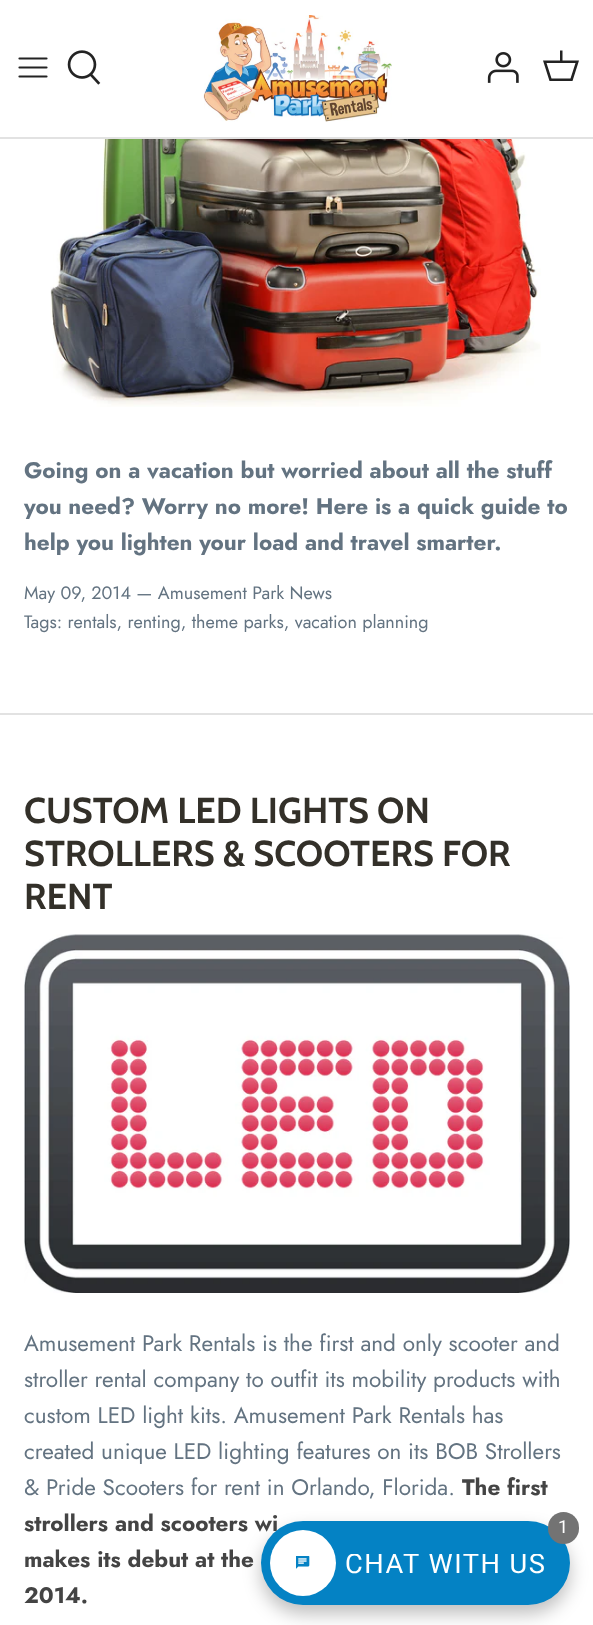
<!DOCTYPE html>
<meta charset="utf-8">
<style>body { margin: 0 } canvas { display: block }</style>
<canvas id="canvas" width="593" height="1625"></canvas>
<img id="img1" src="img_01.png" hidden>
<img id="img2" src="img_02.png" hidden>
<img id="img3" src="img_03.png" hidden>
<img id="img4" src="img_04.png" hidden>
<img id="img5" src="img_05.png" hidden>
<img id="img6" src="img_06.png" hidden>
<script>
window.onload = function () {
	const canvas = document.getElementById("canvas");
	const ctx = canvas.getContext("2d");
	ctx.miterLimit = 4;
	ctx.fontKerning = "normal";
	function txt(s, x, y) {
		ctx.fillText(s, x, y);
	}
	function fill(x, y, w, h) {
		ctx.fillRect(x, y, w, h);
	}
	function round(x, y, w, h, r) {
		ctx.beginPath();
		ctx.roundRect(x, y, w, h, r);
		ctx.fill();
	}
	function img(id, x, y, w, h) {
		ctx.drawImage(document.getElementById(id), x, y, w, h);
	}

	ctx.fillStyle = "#FFFFFF";
	fill(0, 0, 593, 1625);
	ctx.fillStyle = "#E2E2E2";
	fill(0, 137, 593, 2);
	ctx.beginPath();
	ctx.moveTo(19.5, 67.5);
	ctx.lineTo(46.5, 67.5);
	ctx.moveTo(19.5, 58.5);
	ctx.lineTo(46.5, 58.5);
	ctx.moveTo(19.5, 76.5);
	ctx.lineTo(46.5, 76.5);
	ctx.strokeStyle = "#232323";
	ctx.lineWidth = 2.2;
	ctx.lineCap = "round";
	ctx.lineJoin = "round";
	ctx.stroke();
	img("img1", 67, 50, 34, 35);
	img("img2", 203, 15, 189, 107);
	img("img3", 487, 52, 32, 31);
	ctx.fillStyle = "#232323";
	ctx.beginPath();
	ctx.moveTo(560, 60.5);
	ctx.lineTo(560, 50.5);
	ctx.lineTo(562.5, 50.5);
	ctx.lineTo(562.5, 60.5);
	ctx.lineTo(579, 60.5);
	ctx.lineTo(572.5, 81);
	ctx.lineTo(549.5, 81);
	ctx.lineTo(543, 60.5);
	ctx.closePath();
	ctx.moveTo(546.5, 63);
	ctx.lineTo(551.5, 78.5);
	ctx.lineTo(570.5, 78.5);
	ctx.lineTo(575.5, 63);
	ctx.closePath();
	ctx.fill();
	img("img4", 50, 139, 491, 268);
	ctx.fillStyle = "#E2E2E2";
	fill(0, 713, 593, 2);
	img("img5", 24, 934, 546, 359);
	ctx.fillStyle = "rgba(0, 0, 0, 0.25)";
	ctx.filter = "blur(9px)";
	ctx.beginPath();
	ctx.roundRect(261, 1530, 309, 84, 42);
	ctx.fill();
	ctx.filter = "none";
	ctx.font = "bold 22.5px Jost";
	ctx.fillStyle = "#637381";
	txt("Going on a vacation but worried about all the stuff", 24, 478);
	txt("you need? Worry no more! Here is a quick guide to", 24, 514);
	txt("help you lighten your load and travel smarter.", 24, 550);
	ctx.font = "18px Jost";
	txt("May 09, 2014 — Amusement Park News", 24, 599);
	txt("Tags: rentals, renting, theme parks, vacation planning", 24, 628);
	ctx.font = "bold 36px Cabin";
	ctx.fillStyle = "#333029";
	txt("CUSTOM LED LIGHTS ON", 24, 823);
	txt("STROLLERS & SCOOTERS FOR", 24, 866);
	txt("RENT", 24, 909);
	ctx.font = "22.5px Jost";
	ctx.fillStyle = "#637381";
	txt("Amusement Park Rentals is the first and only scooter and", 24, 1351);
	txt("stroller rental company to outfit its mobility products with", 24, 1387);
	txt("custom LED light kits. Amusement Park Rentals has", 24, 1423);
	txt("created unique LED lighting features on its BOB Strollers", 24, 1459);
	txt("& Pride Scooters for rent in Orlando, Florida.", 24, 1495);
	ctx.font = "bold 22.5px Jost";
	ctx.fillStyle = "#444444";
	txt("The first", 462, 1495);
	txt("strollers and scooters wi", 24, 1531);
	txt("makes its debut at the", 24, 1567);
	txt("2014.", 24, 1603);
	ctx.fillStyle = "#0482C4";
	round(261, 1521, 309, 84, 42);
	ctx.fillStyle = "#737373";
	round(548, 1512, 31, 32, 15.5);
	ctx.font = "18px Roboto";
	ctx.fillStyle = "#FFFFFF";
	txt("1", 558, 1533);
	ctx.beginPath();
	ctx.arc(303, 1563, 33, 0, Math.PI * 2);
	ctx.fill();
	img("img6", 296, 1556, 14, 13);
	ctx.save();
	ctx.beginPath();
	ctx.rect(345, 1554, 225, 20);
	ctx.clip();
	ctx.letterSpacing = "1.5px";
	ctx.font = "27.25px Roboto";
	txt("CHAT WITH US", 345, 1573);
	ctx.restore();
};
</script>
